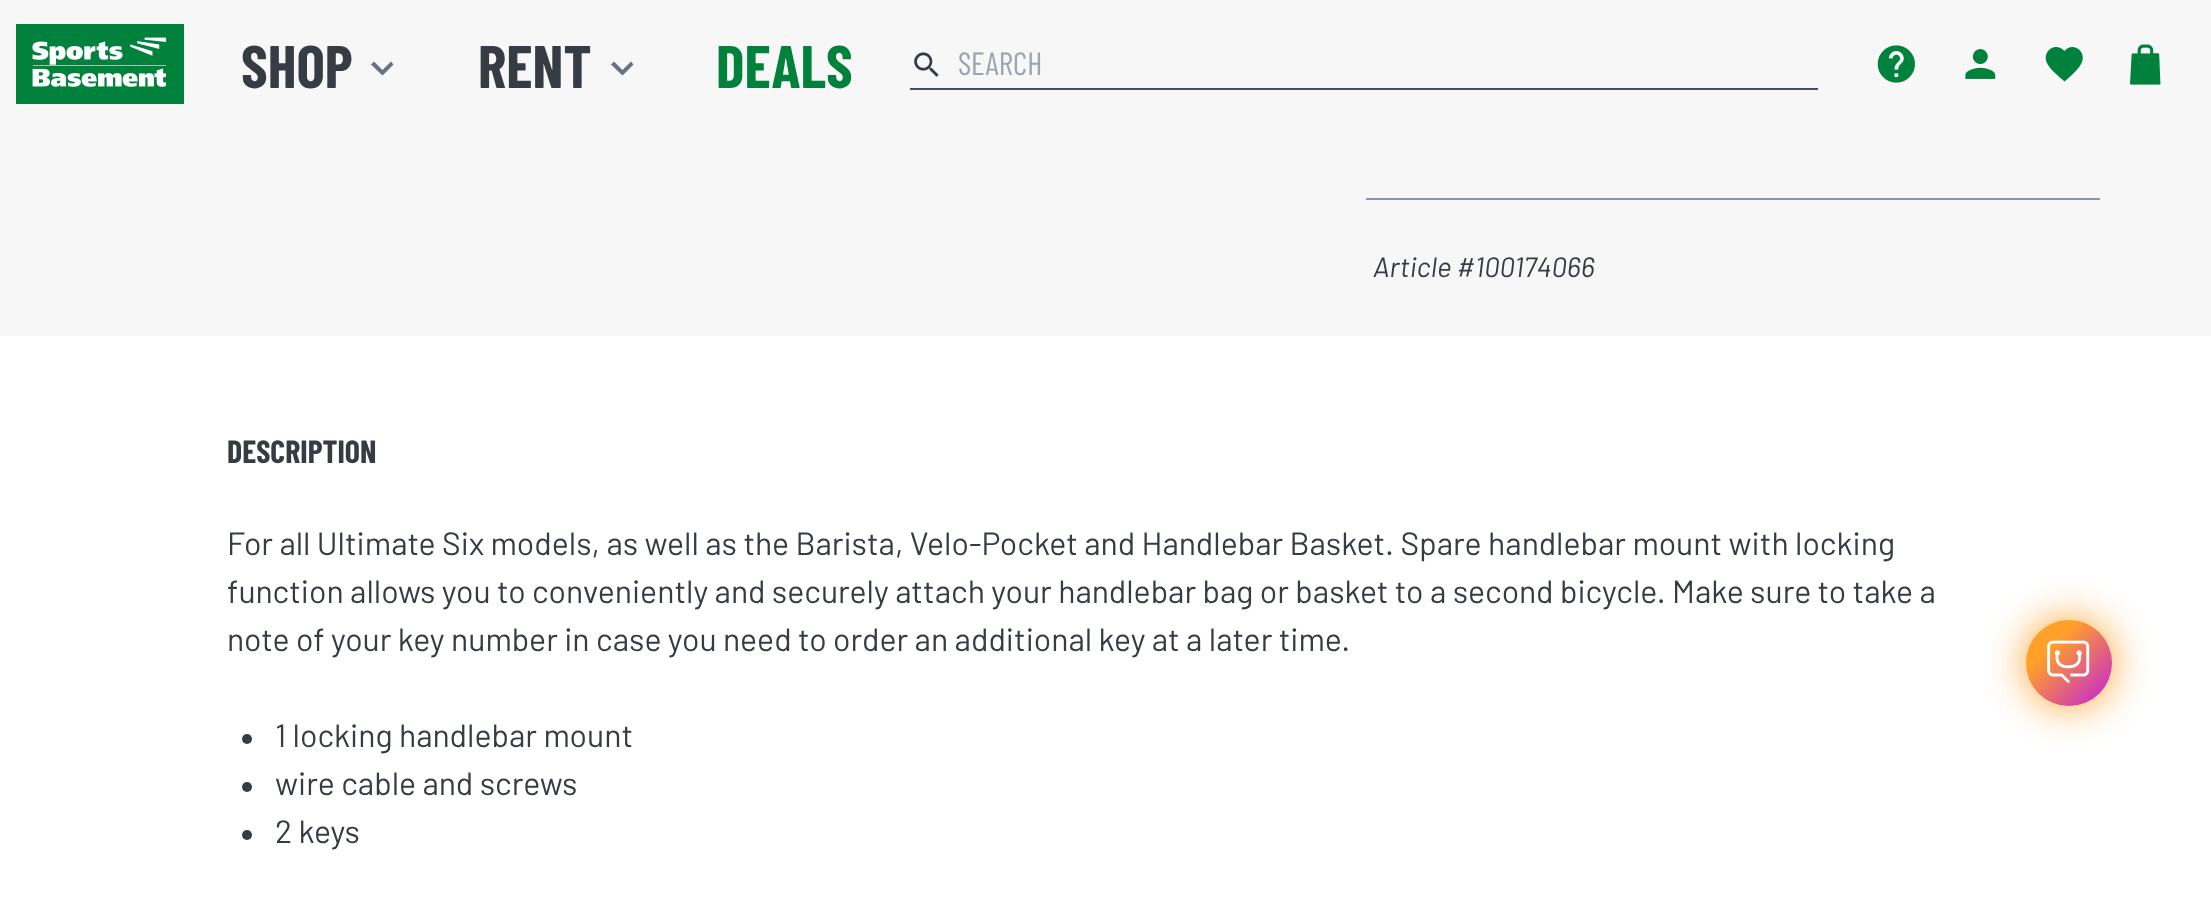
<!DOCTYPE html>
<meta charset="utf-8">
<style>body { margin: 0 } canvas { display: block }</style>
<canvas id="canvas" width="2211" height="906"></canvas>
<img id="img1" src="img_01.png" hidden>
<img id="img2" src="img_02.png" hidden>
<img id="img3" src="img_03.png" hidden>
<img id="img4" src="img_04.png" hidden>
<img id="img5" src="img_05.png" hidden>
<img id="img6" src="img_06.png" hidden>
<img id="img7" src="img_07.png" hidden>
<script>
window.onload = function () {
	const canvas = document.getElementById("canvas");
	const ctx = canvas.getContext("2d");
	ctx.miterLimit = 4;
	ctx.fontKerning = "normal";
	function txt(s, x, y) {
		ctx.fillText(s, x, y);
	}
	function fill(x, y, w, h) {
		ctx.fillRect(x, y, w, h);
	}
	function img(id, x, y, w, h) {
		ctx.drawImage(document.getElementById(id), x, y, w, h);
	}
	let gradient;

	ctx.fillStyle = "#F7F7F7";
	fill(0, 0, 2211, 906);
	img("img1", 16, 24, 168, 80);
	ctx.fillStyle = "#677284";
	ctx.beginPath();
	ctx.moveTo(374, 61.5);
	ctx.lineTo(382.5, 70);
	ctx.lineTo(391, 61.5);
	ctx.lineTo(393.5, 64.5);
	ctx.lineTo(382.5, 75.5);
	ctx.lineTo(371, 64.5);
	ctx.closePath();
	ctx.fill();
	ctx.beginPath();
	ctx.moveTo(614, 61.5);
	ctx.lineTo(622.5, 70);
	ctx.lineTo(631, 61.5);
	ctx.lineTo(633.5, 64.5);
	ctx.lineTo(622.5, 75.5);
	ctx.lineTo(611, 64.5);
	ctx.closePath();
	ctx.fill();
	img("img2", 914, 52, 25, 25);
	ctx.fillStyle = "#474E5D";
	fill(910, 88, 908, 2);
	img("img3", 1877, 45, 38, 38);
	img("img4", 1965, 49, 31, 30);
	ctx.fillStyle = "#00823D";
	ctx.beginPath();
	ctx.moveTo(2064.5, 81.5);
	ctx.bezierCurveTo(2059, 76.5, 2050, 69.5, 2047, 63);
	ctx.bezierCurveTo(2041.5, 51, 2056, 41, 2064.5, 51);
	ctx.bezierCurveTo(2072, 41.5, 2086.5, 50.5, 2082, 62);
	ctx.bezierCurveTo(2079, 69.5, 2070.5, 76, 2064.5, 81.5);
	ctx.closePath();
	ctx.fill();
	img("img5", 2130, 44, 31, 41);
	img("img6", 1622, 130, 1, 1);
	ctx.fillStyle = "#8B95A5";
	fill(1366, 198, 734, 2);
	ctx.fillStyle = "#FFFFFF";
	fill(0, 336, 2211, 570);
	ctx.fillStyle = "#363B44";
	ctx.beginPath();
	ctx.arc(247, 739, 5, 0, Math.PI * 2);
	ctx.fill();
	ctx.beginPath();
	ctx.arc(247, 787, 5, 0, Math.PI * 2);
	ctx.fill();
	ctx.beginPath();
	ctx.arc(247, 835, 5, 0, Math.PI * 2);
	ctx.fill();
	ctx.fillStyle = "#FFA028";
	ctx.filter = "blur(20px)";
	ctx.beginPath();
	ctx.roundRect(2026, 620, 86, 86, 43);
	ctx.fill();
	ctx.filter = "none";
	gradient = ctx.createLinearGradient(2026, 620, 2112, 706);
	gradient.addColorStop(0.3, "#FFA028");
	gradient.addColorStop(1, "#C21DDF");
	ctx.fillStyle = gradient;
	ctx.beginPath();
	ctx.arc(2069, 663, 43, 0, Math.PI * 2);
	ctx.fill();
	img("img7", 2047, 640, 43, 43);
	ctx.font = "bold 60px Barlow Condensed";
	ctx.fillStyle = "#363B44";
	txt("SHOP", 241, 88);
	txt("RENT", 478, 88);
	ctx.fillStyle = "#00823D";
	txt("DEALS", 716, 88);
	ctx.font = "32px Barlow Condensed";
	ctx.fillStyle = "#9CA3AF";
	txt("SEARCH", 958, 75);
	ctx.font = "italic 28px Barlow";
	ctx.fillStyle = "#363B44";
	txt("Article #100174066", 1373, 277);
	ctx.font = "bold 32px Barlow Condensed";
	txt("DESCRIPTION", 227, 463);
	ctx.font = "32px Barlow";
	txt("For all Ultimate Six models, as well as the Barista, Velo-Pocket and Handlebar Basket. Spare handlebar mount with locking", 227, 555);
	txt("function allows you to conveniently and securely attach your handlebar bag or basket to a second bicycle. Make sure to take a", 227, 603);
	txt("note of your key number in case you need to order an additional key at a later time.", 227, 651);
	txt("1 locking handlebar mount", 275, 747);
	txt("wire cable and screws", 275, 795);
	txt("2 keys", 275, 843);
};
</script>
